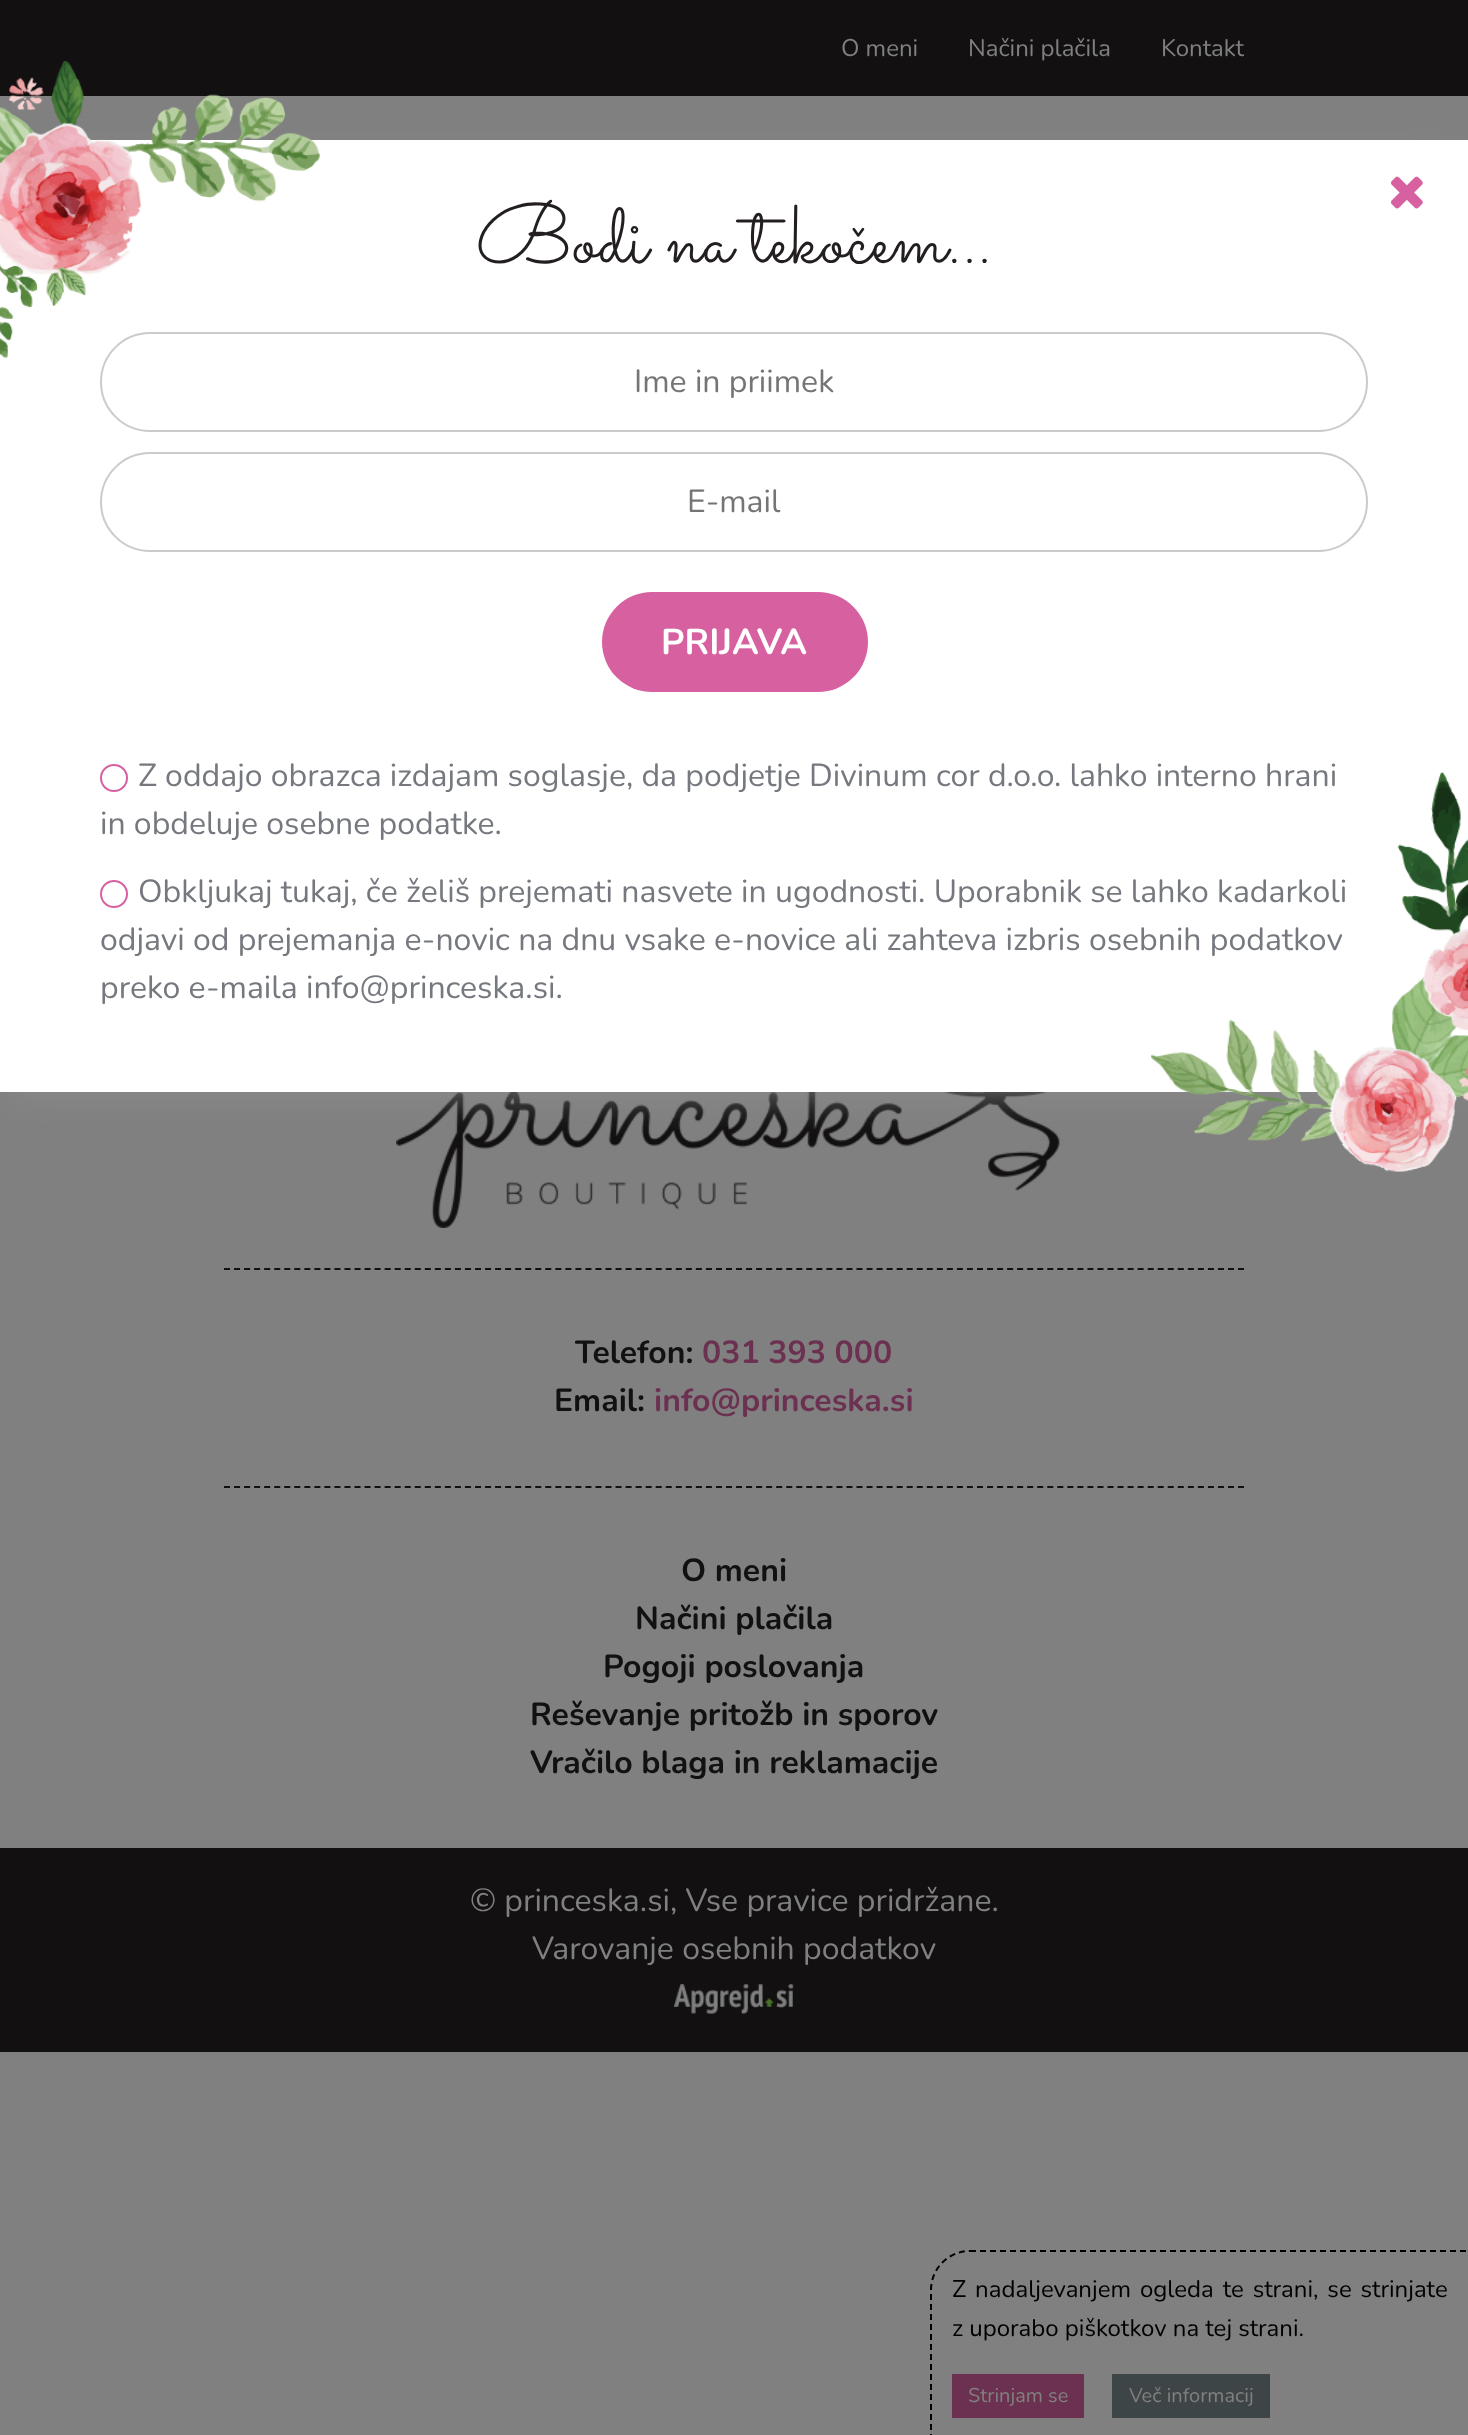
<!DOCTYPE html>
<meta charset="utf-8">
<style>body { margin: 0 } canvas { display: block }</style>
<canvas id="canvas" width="1468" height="2435"></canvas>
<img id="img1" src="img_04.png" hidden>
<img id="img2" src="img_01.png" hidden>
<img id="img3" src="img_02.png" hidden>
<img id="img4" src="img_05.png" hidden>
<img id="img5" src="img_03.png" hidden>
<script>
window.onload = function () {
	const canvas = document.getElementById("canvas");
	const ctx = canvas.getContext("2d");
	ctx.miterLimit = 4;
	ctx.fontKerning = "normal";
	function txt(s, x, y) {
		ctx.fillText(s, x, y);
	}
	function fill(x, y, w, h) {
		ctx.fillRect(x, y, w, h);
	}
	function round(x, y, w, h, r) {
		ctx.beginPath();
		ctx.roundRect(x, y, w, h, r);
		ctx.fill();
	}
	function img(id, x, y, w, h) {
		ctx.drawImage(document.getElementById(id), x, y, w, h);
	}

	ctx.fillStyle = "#808080";
	fill(0, 0, 1468, 2435);
	ctx.fillStyle = "#121010";
	fill(0, 0, 1468, 96);
	img("img1", 396, 1092, 664, 136);
	ctx.fillStyle = "#8C8C8C";
	ctx.filter = "blur(20px)";
	ctx.beginPath();
	ctx.rect(10, 160, 1448, 932);
	ctx.fill();
	ctx.filter = "none";
	ctx.fillStyle = "#FFFFFF";
	fill(0, 140, 1468, 952);
	img("img2", 1391, 176, 32, 33);
	ctx.beginPath();
	ctx.roundRect(101, 333, 1266, 98, 49);
	ctx.strokeStyle = "#CBCBCB";
	ctx.lineWidth = 2;
	ctx.stroke();
	img("img3", 0, 61, 320, 297);
	ctx.beginPath();
	ctx.roundRect(101, 453, 1266, 98, 49);
	ctx.stroke();
	ctx.fillStyle = "#D761A0";
	round(602, 592, 266, 100, 50);
	ctx.beginPath();
	ctx.arc(114, 778, 13, 0, Math.PI * 2);
	ctx.strokeStyle = "#D761A0";
	ctx.stroke();
	ctx.beginPath();
	ctx.arc(114, 894, 13, 0, Math.PI * 2);
	ctx.stroke();
	ctx.beginPath();
	ctx.moveTo(224, 1269);
	ctx.lineTo(1244, 1269);
	ctx.strokeStyle = "#121010";
	ctx.setLineDash([6, 4.04]);
	ctx.stroke();
	ctx.beginPath();
	ctx.moveTo(224, 1487);
	ctx.lineTo(1244, 1487);
	ctx.stroke();
	ctx.fillStyle = "#121010";
	fill(0, 1848, 1468, 204);
	img("img4", 674, 1984, 120, 30);
	ctx.beginPath();
	ctx.moveTo(970, 2251);
	ctx.lineTo(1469, 2251);
	ctx.lineTo(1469, 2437);
	ctx.lineTo(931, 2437);
	ctx.lineTo(931, 2290);
	ctx.bezierCurveTo(931, 2268.5, 948.5, 2251, 970, 2251);
	ctx.closePath();
	ctx.strokeStyle = "#000000";
	ctx.setLineDash([6, 4]);
	ctx.stroke();
	ctx.fillStyle = "#6C3150";
	fill(952, 2374, 132, 44);
	ctx.fillStyle = "#3E4546";
	fill(1112, 2374, 158, 44);
	ctx.font = "24px Nunito";
	ctx.fillStyle = "#808080";
	txt("O meni", 841, 56);
	txt("Načini plačila", 968, 56);
	txt("Kontakt", 1161, 56);
	ctx.font = "84px Sacramento";
	ctx.fillStyle = "#231F20";
	txt("Bodi na tekočem...", 476, 262);
	ctx.font = "32px Nunito";
	ctx.fillStyle = "#757575";
	txt("Ime in priimek", 634, 392);
	txt("E-mail", 687, 512);
	ctx.font = "bold 36px Nunito";
	ctx.fillStyle = "#FFFFFF";
	txt("PRIJAVA", 661, 654);
	ctx.font = "32px Nunito";
	ctx.fillStyle = "#75787E";
	txt("Z oddajo obrazca izdajam soglasje, da podjetje Divinum cor d.o.o. lahko interno hrani", 138, 786);
	txt("in obdeluje osebne podatke.", 100, 834);
	txt("Obkljukaj tukaj, če želiš prejemati nasvete in ugodnosti. Uporabnik se lahko kadarkoli", 138, 902);
	txt("odjavi od prejemanja e-novic na dnu vsake e-novice ali zahteva izbris osebnih podatkov", 100, 950);
	img("img5", 1150, 772, 318, 400);
	txt("preko e-maila info@princeska.si.", 100, 998);
	ctx.font = "bold 32px Nunito";
	ctx.fillStyle = "#121010";
	txt("Telefon:", 575, 1363);
	ctx.fillStyle = "#6C3150";
	txt("031 393 000", 702, 1363);
	ctx.fillStyle = "#121010";
	txt("Email:", 554, 1411);
	ctx.fillStyle = "#6C3150";
	txt("info@princeska.si", 654, 1411);
	ctx.fillStyle = "#121010";
	txt("O meni", 681, 1581);
	txt("Načini plačila", 635, 1629);
	txt("Pogoji poslovanja", 603, 1677);
	txt("Reševanje pritožb in sporov", 530, 1725);
	txt("Vračilo blaga in reklamacije", 530, 1773);
	ctx.font = "32px Nunito";
	ctx.fillStyle = "#808080";
	txt("© princeska.si, Vse pravice pridržane.", 470, 1911);
	txt("Varovanje osebnih podatkov", 532, 1959);
	ctx.wordSpacing = "2.75px";
	ctx.font = "24px Nunito";
	ctx.fillStyle = "#000000";
	txt("Z nadaljevanjem ogleda te strani, se strinjate", 952, 2297);
	ctx.wordSpacing = "0px";
	txt("z uporabo piškotkov na tej strani.", 952, 2336);
	ctx.font = "20px Nunito";
	ctx.fillStyle = "#808080";
	txt("Strinjam se", 968, 2402);
	txt("Več informacij", 1129, 2402);
};
</script>
